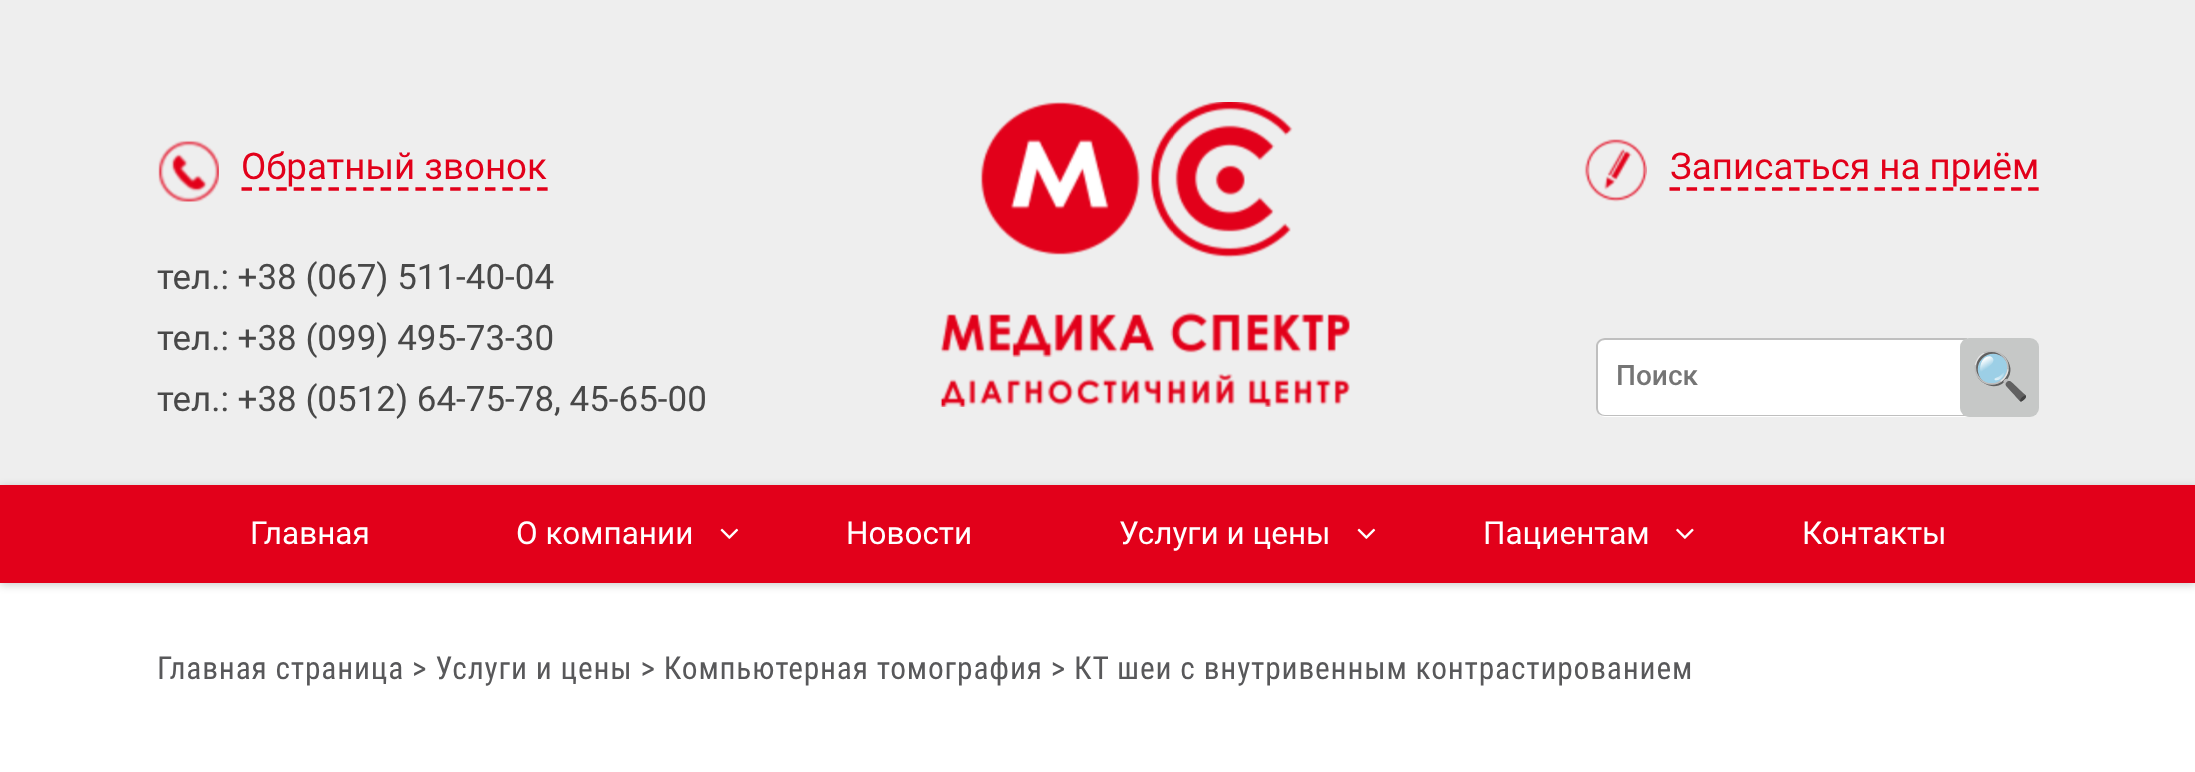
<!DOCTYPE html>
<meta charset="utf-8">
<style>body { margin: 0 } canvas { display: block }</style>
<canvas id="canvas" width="2195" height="772"></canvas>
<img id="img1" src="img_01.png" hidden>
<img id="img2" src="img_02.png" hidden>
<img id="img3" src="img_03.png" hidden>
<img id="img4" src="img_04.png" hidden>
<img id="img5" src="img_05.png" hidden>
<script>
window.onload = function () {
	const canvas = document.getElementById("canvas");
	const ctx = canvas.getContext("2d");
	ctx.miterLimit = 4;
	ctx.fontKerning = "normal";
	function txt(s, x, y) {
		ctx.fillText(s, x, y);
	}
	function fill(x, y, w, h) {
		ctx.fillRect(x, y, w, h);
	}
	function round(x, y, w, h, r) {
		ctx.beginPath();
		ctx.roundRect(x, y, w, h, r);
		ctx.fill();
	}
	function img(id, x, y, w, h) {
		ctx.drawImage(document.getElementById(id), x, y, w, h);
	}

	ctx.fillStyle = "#FFFFFF";
	fill(0, 0, 2195, 772);
	ctx.fillStyle = "#EEEEEE";
	fill(0, 0, 2195, 485);
	img("img1", 158, 140, 61, 62);
	ctx.beginPath();
	ctx.moveTo(241.5, 189);
	ctx.lineTo(548, 189);
	ctx.strokeStyle = "#E2001A";
	ctx.lineWidth = 3.5;
	ctx.setLineDash([10.5, 6.89]);
	ctx.stroke();
	img("img2", 940, 102, 410, 305);
	img("img3", 1584, 139, 63, 63);
	ctx.beginPath();
	ctx.moveTo(1669.5, 189);
	ctx.lineTo(2039, 189);
	ctx.setLineDash([10.5, 6.58]);
	ctx.stroke();
	ctx.fillStyle = "#FFFFFF";
	ctx.beginPath();
	ctx.roundRect(1596, 338, 371, 79, [9, 0, 0, 9]);
	ctx.fill();
	ctx.fillStyle = "#BFBFBF";
	ctx.beginPath();
	ctx.moveTo(1605, 338);
	ctx.lineTo(1967, 338);
	ctx.lineTo(1967, 416);
	ctx.lineTo(1605, 416);
	ctx.bezierCurveTo(1600, 416, 1596, 413, 1596, 408);
	ctx.lineTo(1596, 346);
	ctx.bezierCurveTo(1596, 342, 1600, 338, 1605, 338);
	ctx.closePath();
	ctx.moveTo(1605, 340);
	ctx.lineTo(1967, 340);
	ctx.lineTo(1967, 415);
	ctx.lineTo(1605, 415);
	ctx.bezierCurveTo(1601, 415, 1598, 412, 1598, 408);
	ctx.lineTo(1598, 346);
	ctx.bezierCurveTo(1598, 343, 1601, 340, 1605, 340);
	ctx.closePath();
	ctx.fill("evenodd");
	ctx.fillStyle = "#C6C8C7";
	round(1960, 338, 79, 79, 9);
	ctx.fillStyle = "rgba(0, 0, 0, 0.2)";
	ctx.filter = "blur(4.5px)";
	ctx.beginPath();
	ctx.rect(0, 487, 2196, 98);
	ctx.fill();
	ctx.filter = "none";
	ctx.fillStyle = "#E2001A";
	fill(0, 485, 2195, 98);
	img("img4", 720, 528, 19, 11);
	img("img4", 1357, 528, 19, 11);
	img("img5", 1676, 528, 18, 11);
	ctx.font = "36.75px Roboto";
	txt("Обратный звонок", 241, 179);
	ctx.font = "35px Roboto";
	ctx.fillStyle = "#484848";
	txt("тел.: +38 (067) 511-40-04", 157, 289);
	txt("тел.: +38 (099) 495-73-30", 157, 350);
	txt("тел.: +38 (0512) 64-75-78, 45-65-00", 157, 411);
	ctx.font = "36.75px Roboto";
	ctx.fillStyle = "#E2001A";
	txt("Записаться на приём", 1670, 179);
	ctx.font = "500 28px Roboto";
	ctx.fillStyle = "#757575";
	txt("Поиск", 1616, 385);
	ctx.font = "47px Noto Color Emoji";
	ctx.fillStyle = "#000000";
	txt("🔍", 1971, 392);
	ctx.font = "31.5px Roboto";
	ctx.fillStyle = "#FFFFFF";
	txt("Главная", 250, 544);
	txt("О компании", 516, 544);
	txt("Новости", 846, 544);
	txt("Услуги и цены", 1119, 544);
	txt("Пациентам", 1483, 544);
	txt("Контакты", 1802, 544);
	ctx.letterSpacing = "0.79px";
	ctx.font = "31.5px Roboto Condensed";
	ctx.fillStyle = "#58585A";
	txt("Главная страница > Услуги и цены > Компьютерная томография > КТ шеи c внутривенным контрастированием", 157, 679);
};
</script>
